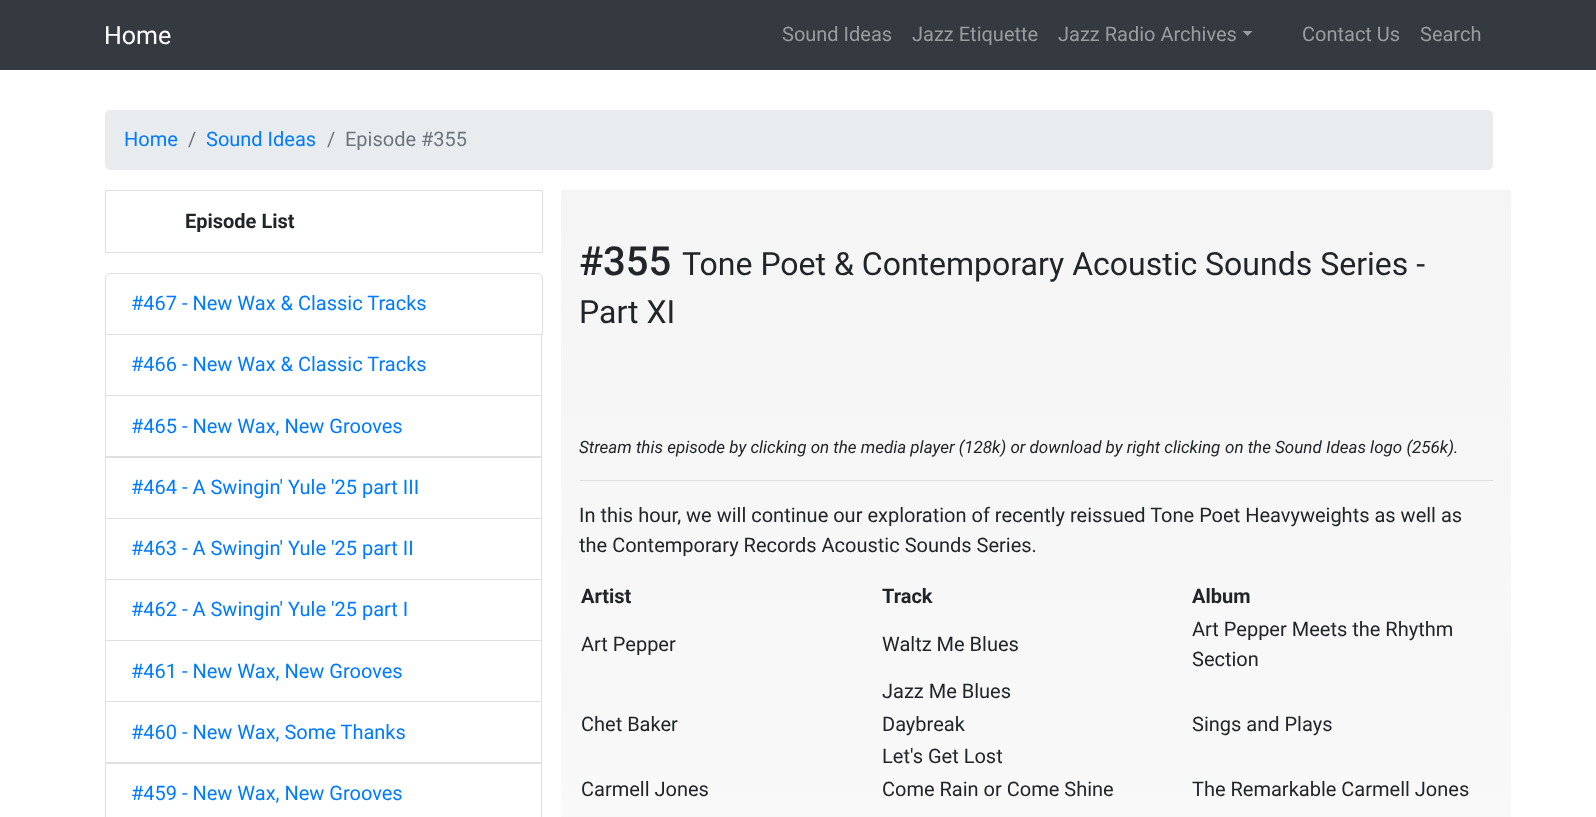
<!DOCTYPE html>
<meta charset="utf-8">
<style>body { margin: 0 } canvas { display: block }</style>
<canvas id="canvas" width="1596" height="817"></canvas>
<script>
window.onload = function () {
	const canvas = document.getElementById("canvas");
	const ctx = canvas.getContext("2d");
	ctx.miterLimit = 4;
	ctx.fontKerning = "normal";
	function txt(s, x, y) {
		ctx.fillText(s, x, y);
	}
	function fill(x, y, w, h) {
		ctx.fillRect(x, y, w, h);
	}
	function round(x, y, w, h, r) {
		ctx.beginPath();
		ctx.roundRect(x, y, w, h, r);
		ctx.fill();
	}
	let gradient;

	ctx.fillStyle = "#FFFFFF";
	fill(0, 0, 1596, 817);
	ctx.fillStyle = "#343A40";
	fill(0, 0, 1596, 70);
	ctx.fillStyle = "#9A9DA0";
	ctx.beginPath();
	ctx.moveTo(1242.5, 31);
	ctx.lineTo(1252.5, 31);
	ctx.lineTo(1247.5, 36);
	ctx.closePath();
	ctx.fill();
	ctx.fillStyle = "#E9ECEF";
	round(105, 110, 1388, 60, 5);
	ctx.strokeStyle = "#DFDFDF";
	ctx.strokeRect(105.5, 190.5, 437, 62);
	ctx.beginPath();
	ctx.roundRect(105.5, 273.5, 437, 61, [4.5, 4.5, 0, 0]);
	ctx.stroke();
	ctx.fillStyle = "#DFDFDF";
	ctx.beginPath();
	ctx.moveTo(542, 335);
	ctx.lineTo(542, 396);
	ctx.lineTo(541, 395);
	ctx.lineTo(541, 335);
	ctx.closePath();
	ctx.fill();
	ctx.fillStyle = "rgba(0, 0, 0, 0.12)";
	ctx.beginPath();
	ctx.moveTo(542, 396);
	ctx.lineTo(105, 396);
	ctx.lineTo(106, 395);
	ctx.lineTo(541, 395);
	ctx.closePath();
	ctx.fill();
	ctx.beginPath();
	ctx.moveTo(105, 396);
	ctx.lineTo(105, 335);
	ctx.lineTo(106, 335);
	ctx.lineTo(106, 395);
	ctx.closePath();
	ctx.fill();
	ctx.fillStyle = "#DFDFDF";
	ctx.beginPath();
	ctx.moveTo(542, 396);
	ctx.lineTo(542, 458);
	ctx.lineTo(541, 456);
	ctx.lineTo(541, 396);
	ctx.closePath();
	ctx.fill();
	ctx.fillStyle = "rgba(0, 0, 0, 0.12)";
	ctx.beginPath();
	ctx.moveTo(542, 458);
	ctx.lineTo(105, 458);
	ctx.lineTo(106, 456);
	ctx.lineTo(541, 456);
	ctx.closePath();
	ctx.fill();
	ctx.beginPath();
	ctx.moveTo(105, 458);
	ctx.lineTo(105, 396);
	ctx.lineTo(106, 396);
	ctx.lineTo(106, 456);
	ctx.closePath();
	ctx.fill();
	ctx.fillStyle = "#DFDFDF";
	ctx.beginPath();
	ctx.moveTo(542, 458);
	ctx.lineTo(542, 519);
	ctx.lineTo(541, 518);
	ctx.lineTo(541, 458);
	ctx.closePath();
	ctx.fill();
	ctx.fillStyle = "rgba(0, 0, 0, 0.12)";
	ctx.beginPath();
	ctx.moveTo(542, 519);
	ctx.lineTo(105, 519);
	ctx.lineTo(106, 518);
	ctx.lineTo(541, 518);
	ctx.closePath();
	ctx.fill();
	ctx.beginPath();
	ctx.moveTo(105, 519);
	ctx.lineTo(105, 458);
	ctx.lineTo(106, 458);
	ctx.lineTo(106, 518);
	ctx.closePath();
	ctx.fill();
	ctx.fillStyle = "#DFDFDF";
	ctx.beginPath();
	ctx.moveTo(542, 519);
	ctx.lineTo(542, 580);
	ctx.lineTo(541, 579);
	ctx.lineTo(541, 519);
	ctx.closePath();
	ctx.fill();
	ctx.fillStyle = "rgba(0, 0, 0, 0.12)";
	ctx.beginPath();
	ctx.moveTo(542, 580);
	ctx.lineTo(105, 580);
	ctx.lineTo(106, 579);
	ctx.lineTo(541, 579);
	ctx.closePath();
	ctx.fill();
	ctx.beginPath();
	ctx.moveTo(105, 580);
	ctx.lineTo(105, 519);
	ctx.lineTo(106, 519);
	ctx.lineTo(106, 579);
	ctx.closePath();
	ctx.fill();
	ctx.fillStyle = "#DFDFDF";
	ctx.beginPath();
	ctx.moveTo(542, 580);
	ctx.lineTo(542, 641);
	ctx.lineTo(541, 640);
	ctx.lineTo(541, 580);
	ctx.closePath();
	ctx.fill();
	ctx.fillStyle = "rgba(0, 0, 0, 0.12)";
	ctx.beginPath();
	ctx.moveTo(542, 641);
	ctx.lineTo(105, 641);
	ctx.lineTo(106, 640);
	ctx.lineTo(541, 640);
	ctx.closePath();
	ctx.fill();
	ctx.beginPath();
	ctx.moveTo(105, 641);
	ctx.lineTo(105, 580);
	ctx.lineTo(106, 580);
	ctx.lineTo(106, 640);
	ctx.closePath();
	ctx.fill();
	ctx.fillStyle = "#DFDFDF";
	ctx.beginPath();
	ctx.moveTo(542, 641);
	ctx.lineTo(542, 702);
	ctx.lineTo(541, 701);
	ctx.lineTo(541, 641);
	ctx.closePath();
	ctx.fill();
	ctx.fillStyle = "rgba(0, 0, 0, 0.12)";
	ctx.beginPath();
	ctx.moveTo(542, 702);
	ctx.lineTo(105, 702);
	ctx.lineTo(106, 701);
	ctx.lineTo(541, 701);
	ctx.closePath();
	ctx.fill();
	ctx.beginPath();
	ctx.moveTo(105, 702);
	ctx.lineTo(105, 641);
	ctx.lineTo(106, 641);
	ctx.lineTo(106, 701);
	ctx.closePath();
	ctx.fill();
	ctx.fillStyle = "#DFDFDF";
	ctx.beginPath();
	ctx.moveTo(542, 702);
	ctx.lineTo(542, 764);
	ctx.lineTo(541, 762);
	ctx.lineTo(541, 702);
	ctx.closePath();
	ctx.fill();
	ctx.fillStyle = "rgba(0, 0, 0, 0.12)";
	ctx.beginPath();
	ctx.moveTo(542, 764);
	ctx.lineTo(105, 764);
	ctx.lineTo(106, 762);
	ctx.lineTo(541, 762);
	ctx.closePath();
	ctx.fill();
	ctx.beginPath();
	ctx.moveTo(105, 764);
	ctx.lineTo(105, 702);
	ctx.lineTo(106, 702);
	ctx.lineTo(106, 762);
	ctx.closePath();
	ctx.fill();
	ctx.fillStyle = "#DFDFDF";
	ctx.beginPath();
	ctx.moveTo(542, 764);
	ctx.lineTo(542, 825);
	ctx.lineTo(541, 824);
	ctx.lineTo(541, 764);
	ctx.closePath();
	ctx.fill();
	ctx.beginPath();
	ctx.moveTo(105, 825);
	ctx.lineTo(105, 764);
	ctx.lineTo(106, 764);
	ctx.lineTo(106, 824);
	ctx.closePath();
	ctx.fill();
	gradient = ctx.createLinearGradient(1036, 190, 1036, 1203);
	gradient.addColorStop(0, "#F5F5F5");
	gradient.addColorStop(1, "#FBFBFB");
	ctx.fillStyle = gradient;
	fill(561, 190, 950, 627);
	ctx.fillStyle = "#DEDEDE";
	fill(580, 480, 913, 1);
	ctx.font = "25px Roboto";
	ctx.fillStyle = "#FFFFFF";
	txt("Home", 104, 44);
	ctx.font = "20px Roboto";
	ctx.fillStyle = "#9A9DA0";
	txt("Sound Ideas", 782, 41);
	txt("Jazz Etiquette", 912, 41);
	txt("Jazz Radio Archives", 1058, 41);
	txt("Contact Us", 1302, 41);
	txt("Search", 1420, 41);
	ctx.fillStyle = "#007BFF";
	txt("Home", 124, 146);
	ctx.fillStyle = "#6C757D";
	txt("/", 188, 146);
	ctx.fillStyle = "#007BFF";
	txt("Sound Ideas", 206, 146);
	ctx.fillStyle = "#6C757D";
	txt("/", 327, 146);
	txt("Episode #355", 345, 146);
	ctx.font = "bold 20px Roboto";
	ctx.fillStyle = "#212529";
	txt("Episode List", 185, 228);
	ctx.font = "20px Roboto";
	ctx.fillStyle = "#007BFF";
	txt("#467 - New Wax & Classic Tracks", 131, 310);
	txt("#466 - New Wax & Classic Tracks", 131, 371);
	txt("#465 - New Wax, New Grooves", 131, 433);
	txt("#464 - A Swingin' Yule '25 part III", 131, 494);
	txt("#463 - A Swingin' Yule '25 part II", 131, 555);
	txt("#462 - A Swingin' Yule '25 part I", 131, 616);
	txt("#461 - New Wax, New Grooves", 131, 678);
	txt("#460 - New Wax, Some Thanks", 131, 739);
	txt("#459 - New Wax, New Grooves", 131, 800);
	ctx.font = "500 40px Roboto";
	ctx.fillStyle = "#212529";
	txt("#355", 579, 275);
	ctx.font = "32px Roboto";
	txt("Tone Poet & Contemporary Acoustic Sounds Series -", 682, 275);
	txt("Part XI", 579, 323);
	ctx.font = "italic 17px Roboto";
	txt("Stream this episode by clicking on the media player (128k) or download by right clicking", 579, 453);
	txt("on the Sound Ideas logo (256k).", 1225, 453);
	ctx.font = "20px Roboto";
	txt("In this hour, we will continue our exploration of recently reissued Tone Poet Heavyweights as well as", 579, 522);
	txt("the Contemporary Records Acoustic Sounds Series.", 579, 552);
	ctx.font = "bold 20px Roboto";
	txt("Artist", 581, 603);
	txt("Track", 882, 603);
	txt("Album", 1192, 603);
	ctx.font = "20px Roboto";
	txt("Art Pepper", 581, 651);
	txt("Waltz Me Blues", 882, 651);
	txt("Art Pepper Meets the Rhythm", 1192, 636);
	txt("Section", 1192, 666);
	txt("Jazz Me Blues", 882, 698);
	txt("Chet Baker", 581, 731);
	txt("Daybreak", 882, 731);
	txt("Sings and Plays", 1192, 731);
	txt("Let's Get Lost", 882, 763);
	txt("Carmell Jones", 581, 796);
	txt("Come Rain or Come Shine", 882, 796);
	txt("The Remarkable Carmell Jones", 1192, 796);
};
</script>
